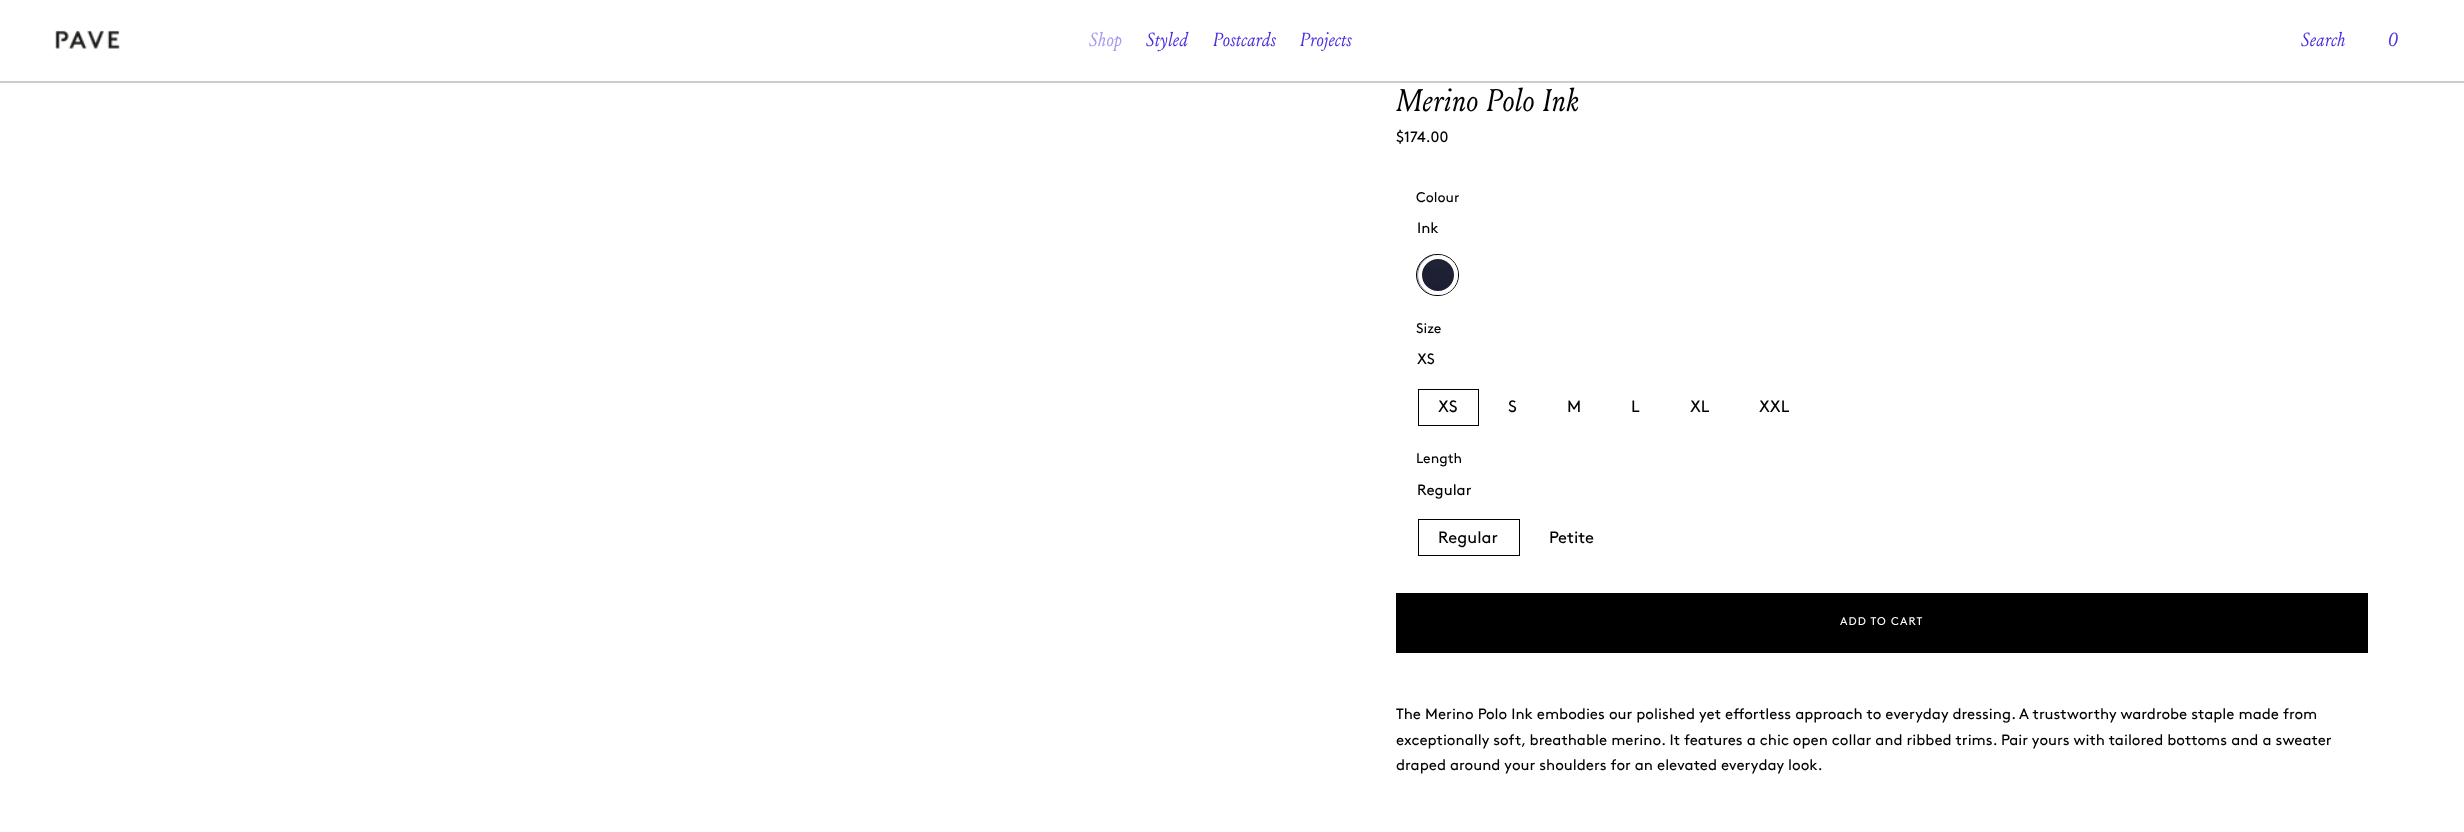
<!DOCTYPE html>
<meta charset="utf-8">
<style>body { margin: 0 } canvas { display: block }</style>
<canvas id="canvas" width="2464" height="832"></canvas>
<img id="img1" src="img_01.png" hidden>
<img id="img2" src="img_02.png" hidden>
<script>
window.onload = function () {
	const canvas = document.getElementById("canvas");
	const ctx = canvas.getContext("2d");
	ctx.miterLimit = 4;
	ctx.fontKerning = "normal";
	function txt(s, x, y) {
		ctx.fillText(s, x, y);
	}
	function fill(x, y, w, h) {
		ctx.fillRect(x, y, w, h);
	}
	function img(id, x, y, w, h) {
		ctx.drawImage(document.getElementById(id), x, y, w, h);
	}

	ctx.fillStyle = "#FFFFFF";
	fill(0, 0, 2464, 832);
	ctx.save();
	ctx.beginPath();
	ctx.rect(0, 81, 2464, 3);
	ctx.clip();
	ctx.fillStyle = "rgba(0, 0, 0, 0.2)";
	ctx.filter = "blur(0.5px)";
	ctx.beginPath();
	ctx.rect(0, 1, 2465, 82);
	ctx.fill();
	ctx.filter = "none";
	ctx.restore();
	img("img1", 55, 30, 66, 19);
	ctx.beginPath();
	ctx.roundRect(1416.5, 254.5, 42, 41, 20.5);
	ctx.strokeStyle = "#000000";
	ctx.stroke();
	img("img2", 1417, 254, 41, 41);
	ctx.beginPath();
	ctx.arc(1438, 275, 18, 0, Math.PI * 2);
	ctx.strokeStyle = "#FFFFFF";
	ctx.lineWidth = 4;
	ctx.stroke();
	ctx.strokeStyle = "#000000";
	ctx.lineWidth = 1;
	ctx.strokeRect(1418.5, 389.5, 60, 36);
	ctx.strokeRect(1418.5, 519.5, 101, 36);
	ctx.fillStyle = "#000000";
	fill(1396, 593, 972, 60);
	ctx.font = "italic 19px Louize";
	ctx.fillStyle = "#A598EF";
	txt("Shop", 1089, 46);
	ctx.fillStyle = "#4A30DE";
	txt("Styled", 1146, 46);
	txt("Postcards", 1213, 46);
	txt("Projects", 1300, 46);
	txt("Search", 2301, 46);
	txt("0", 2388, 46);
	ctx.font = "italic 31.25px Louize";
	ctx.fillStyle = "#000000";
	txt("Merino Polo Ink", 1396, 111);
	ctx.font = "15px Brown";
	txt("$174.00", 1396, 142);
	ctx.font = "14px Brown";
	txt("Colour", 1416, 202);
	ctx.font = "15px Brown";
	txt("Ink", 1417, 233);
	ctx.font = "14px Brown";
	txt("Size", 1416, 333);
	ctx.font = "15px Brown";
	txt("XS", 1417, 364);
	ctx.font = "16.5px Brown";
	txt("XS", 1438, 412);
	txt("S", 1508, 412);
	txt("M", 1567, 412);
	txt("L", 1631, 412);
	txt("XL", 1690, 412);
	txt("XXL", 1759, 412);
	ctx.font = "14px Brown";
	txt("Length", 1416, 463);
	ctx.font = "15px Brown";
	txt("Regular", 1417, 495);
	ctx.font = "16.5px Brown";
	txt("Regular", 1438, 543);
	txt("Petite", 1549, 543);
	ctx.letterSpacing = "1.1px";
	ctx.font = "11.25px Brown";
	ctx.fillStyle = "#FFFFFF";
	txt("ADD TO CART", 1840, 625);
	ctx.letterSpacing = "0px";
	ctx.font = "15px Brown";
	ctx.fillStyle = "#000000";
	txt("The Merino Polo Ink embodies our polished yet effortless approach to everyday dressing. A trustworthy wardrobe staple made from", 1396, 719);
	txt("exceptionally soft, breathable merino. It features a chic open collar and ribbed trims. Pair yours with tailored bottoms and a sweater", 1396, 745);
	txt("draped around your shoulders for an elevated everyday look.", 1396, 770);
};
</script>
